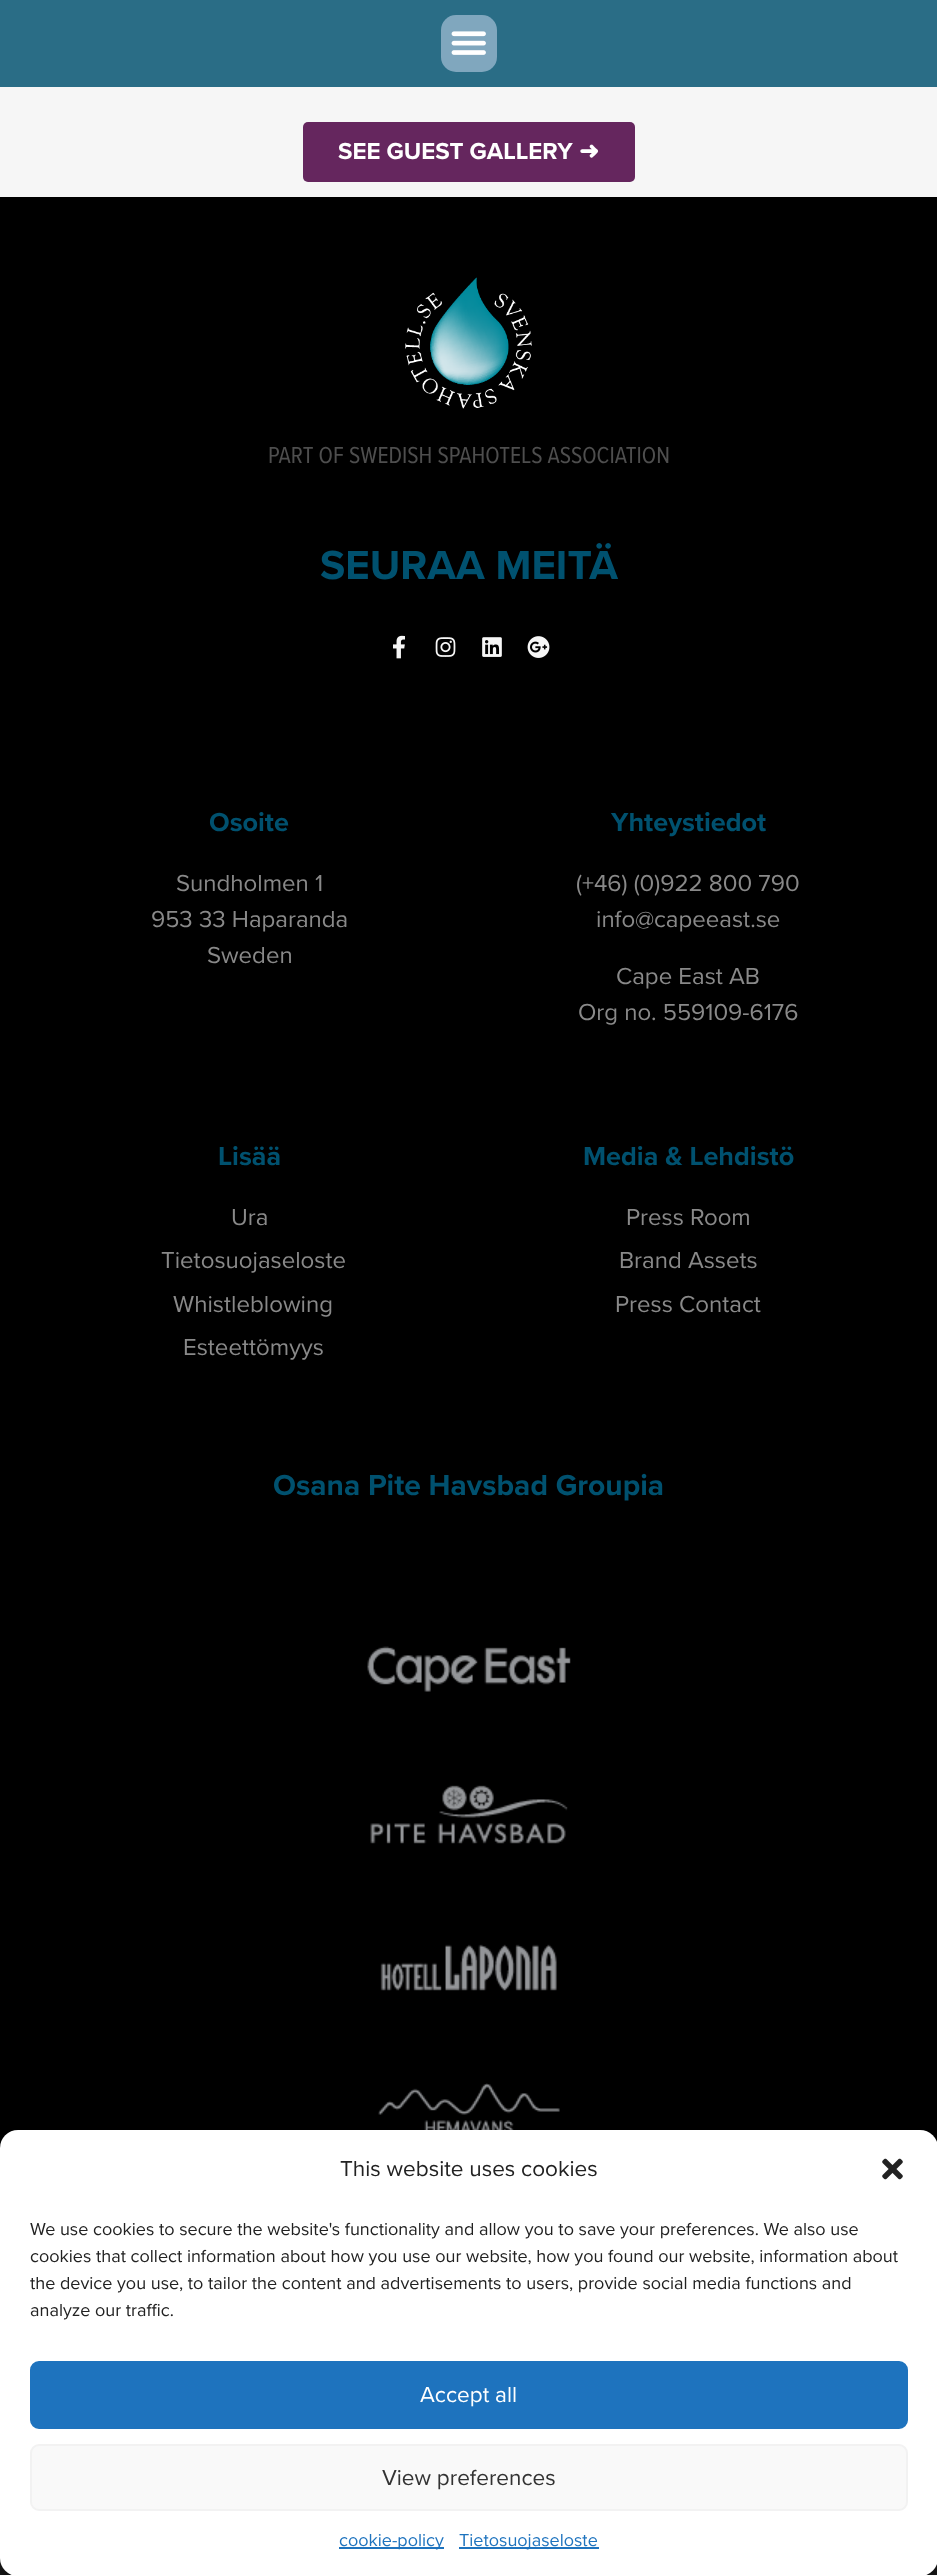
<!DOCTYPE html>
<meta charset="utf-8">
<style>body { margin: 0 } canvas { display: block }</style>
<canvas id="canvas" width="937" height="2575"></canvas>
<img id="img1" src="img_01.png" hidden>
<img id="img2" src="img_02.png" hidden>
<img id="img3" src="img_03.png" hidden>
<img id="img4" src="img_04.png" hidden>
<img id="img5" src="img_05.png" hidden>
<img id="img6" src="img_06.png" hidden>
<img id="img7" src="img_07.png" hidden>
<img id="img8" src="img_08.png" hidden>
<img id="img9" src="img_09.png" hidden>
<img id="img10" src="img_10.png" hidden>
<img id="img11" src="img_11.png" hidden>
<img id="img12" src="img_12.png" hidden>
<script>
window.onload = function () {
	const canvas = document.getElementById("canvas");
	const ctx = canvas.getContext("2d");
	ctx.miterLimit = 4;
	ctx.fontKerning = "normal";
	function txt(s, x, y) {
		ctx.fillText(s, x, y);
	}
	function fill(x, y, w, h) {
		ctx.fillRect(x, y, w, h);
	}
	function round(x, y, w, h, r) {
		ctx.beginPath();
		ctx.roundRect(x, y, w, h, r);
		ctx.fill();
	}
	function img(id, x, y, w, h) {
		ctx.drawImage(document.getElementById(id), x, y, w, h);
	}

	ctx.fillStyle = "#F6F6F6";
	fill(0, 0, 937, 2575);
	ctx.fillStyle = "#2A6D86";
	fill(0, 0, 937, 87);
	ctx.fillStyle = "#80A7BE";
	round(441, 15, 56, 57, 15);
	img("img1", 451, 31, 35, 24);
	ctx.fillStyle = "#65265E";
	round(303, 122, 332, 60, 5);
	ctx.fillStyle = "#000000";
	fill(0, 197, 937, 1951);
	img("img2", 405, 277, 127, 132);
	img("img3", 393, 635, 12, 24);
	img("img4", 435, 637, 21, 20);
	img("img5", 482, 637, 20, 20);
	img("img6", 527, 636, 23, 22);
	img("img7", 367, 1646, 204, 46);
	img("img8", 370, 1785, 198, 59);
	img("img9", 380, 1944, 177, 47);
	img("img10", 378, 2083, 182, 47);
	img("img11", 0, 2558, 937, 17);
	ctx.fillStyle = "rgba(0, 0, 0, 0.23)";
	ctx.filter = "blur(4.5px)";
	ctx.beginPath();
	ctx.roundRect(0, 2139, 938, 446, 18);
	ctx.fill();
	ctx.filter = "none";
	ctx.fillStyle = "rgba(0, 0, 0, 0.19)";
	ctx.filter = "blur(15px)";
	ctx.beginPath();
	ctx.roundRect(0, 2145, 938, 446, 18);
	ctx.fill();
	ctx.filter = "none";
	ctx.fillStyle = "#FFFFFF";
	round(0, 2130, 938, 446, 18);
	img("img12", 882, 2158, 21, 22);
	ctx.fillStyle = "#1E73BE";
	ctx.beginPath();
	ctx.roundRect(31, 2362, 876, 66, 8);
	ctx.fill();
	ctx.strokeStyle = "#1E73BE";
	ctx.lineWidth = 2;
	ctx.stroke();
	ctx.fillStyle = "#F9F9F9";
	ctx.beginPath();
	ctx.roundRect(31, 2445, 876, 65, 8);
	ctx.fill();
	ctx.strokeStyle = "#F2F2F2";
	ctx.stroke();
	ctx.fillStyle = "#1E73BE";
	fill(339, 2547, 105, 2);
	fill(459, 2547, 140, 2);
	ctx.font = "bold 24px Proxima Nova";
	ctx.fillStyle = "#FFFFFF";
	txt("SEE GUEST GALLERY", 338, 159);
	ctx.font = "bold 24px DejaVu Sans";
	txt("➜", 579, 159);
	ctx.font = "24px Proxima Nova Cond";
	ctx.fillStyle = "#4E4E4E";
	txt("PART OF SWEDISH SPAHOTELS ASSOCIATION", 268, 463);
	ctx.font = "bold 42px Proxima Nova";
	ctx.fillStyle = "#00516F";
	txt("SEURAA MEITÄ", 320, 579);
	ctx.font = "bold 27px Proxima Nova";
	txt("Osoite", 209, 831);
	ctx.font = "24px Proxima Nova";
	ctx.fillStyle = "#898989";
	txt("Sundholmen 1", 176, 891);
	txt("953 33 Haparanda", 151, 927);
	txt("Sweden", 207, 963);
	ctx.font = "bold 27px Proxima Nova";
	ctx.fillStyle = "#00516F";
	txt("Yhteystiedot", 611, 831);
	ctx.font = "24px Proxima Nova";
	ctx.fillStyle = "#898989";
	txt("(+46) (0)922 800 790", 576, 891);
	txt("info@capeeast.se", 596, 927);
	txt("Cape East AB", 616, 984);
	txt("Org no. 559109-6176", 578, 1020);
	ctx.font = "bold 27px Proxima Nova";
	ctx.fillStyle = "#00516F";
	txt("Lisää", 218, 1165);
	ctx.font = "24px Proxima Nova";
	ctx.fillStyle = "#898989";
	txt("Ura", 231, 1225);
	txt("Tietosuojaseloste", 161, 1268);
	txt("Whistleblowing", 173, 1312);
	txt("Esteettömyys", 183, 1355);
	ctx.font = "bold 27px Proxima Nova";
	ctx.fillStyle = "#00516F";
	txt("Media & Lehdistö", 583, 1165);
	ctx.font = "24px Proxima Nova";
	ctx.fillStyle = "#898989";
	txt("Press Room", 626, 1225);
	txt("Brand Assets", 619, 1268);
	txt("Press Contact", 615, 1312);
	ctx.font = "bold 30px Proxima Nova";
	ctx.fillStyle = "#00516F";
	txt("Osana Pite Havsbad Groupia", 273, 1495);
	ctx.font = "22.5px Proxima Nova";
	ctx.fillStyle = "#222222";
	txt("This website uses cookies", 340, 2176);
	ctx.font = "18px Proxima Nova";
	txt("We use cookies to secure the website's functionality and allow you to save your preferences. We also use", 30, 2235);
	txt("cookies that collect information about how you use our website, how you found our website, information about", 30, 2262);
	txt("the device you use, to tailor the content and advertisements to users, provide social media functions and", 30, 2289);
	txt("analyze our traffic.", 30, 2316);
	ctx.font = "22.5px Proxima Nova";
	ctx.fillStyle = "#FFFFFF";
	txt("Accept all", 420, 2402);
	ctx.fillStyle = "#333333";
	txt("View preferences", 382, 2485);
	ctx.font = "18px Proxima Nova";
	ctx.fillStyle = "#1E73BE";
	txt("cookie-policy", 339, 2546);
	txt("Tietosuojaseloste", 459, 2546);
};
</script>
